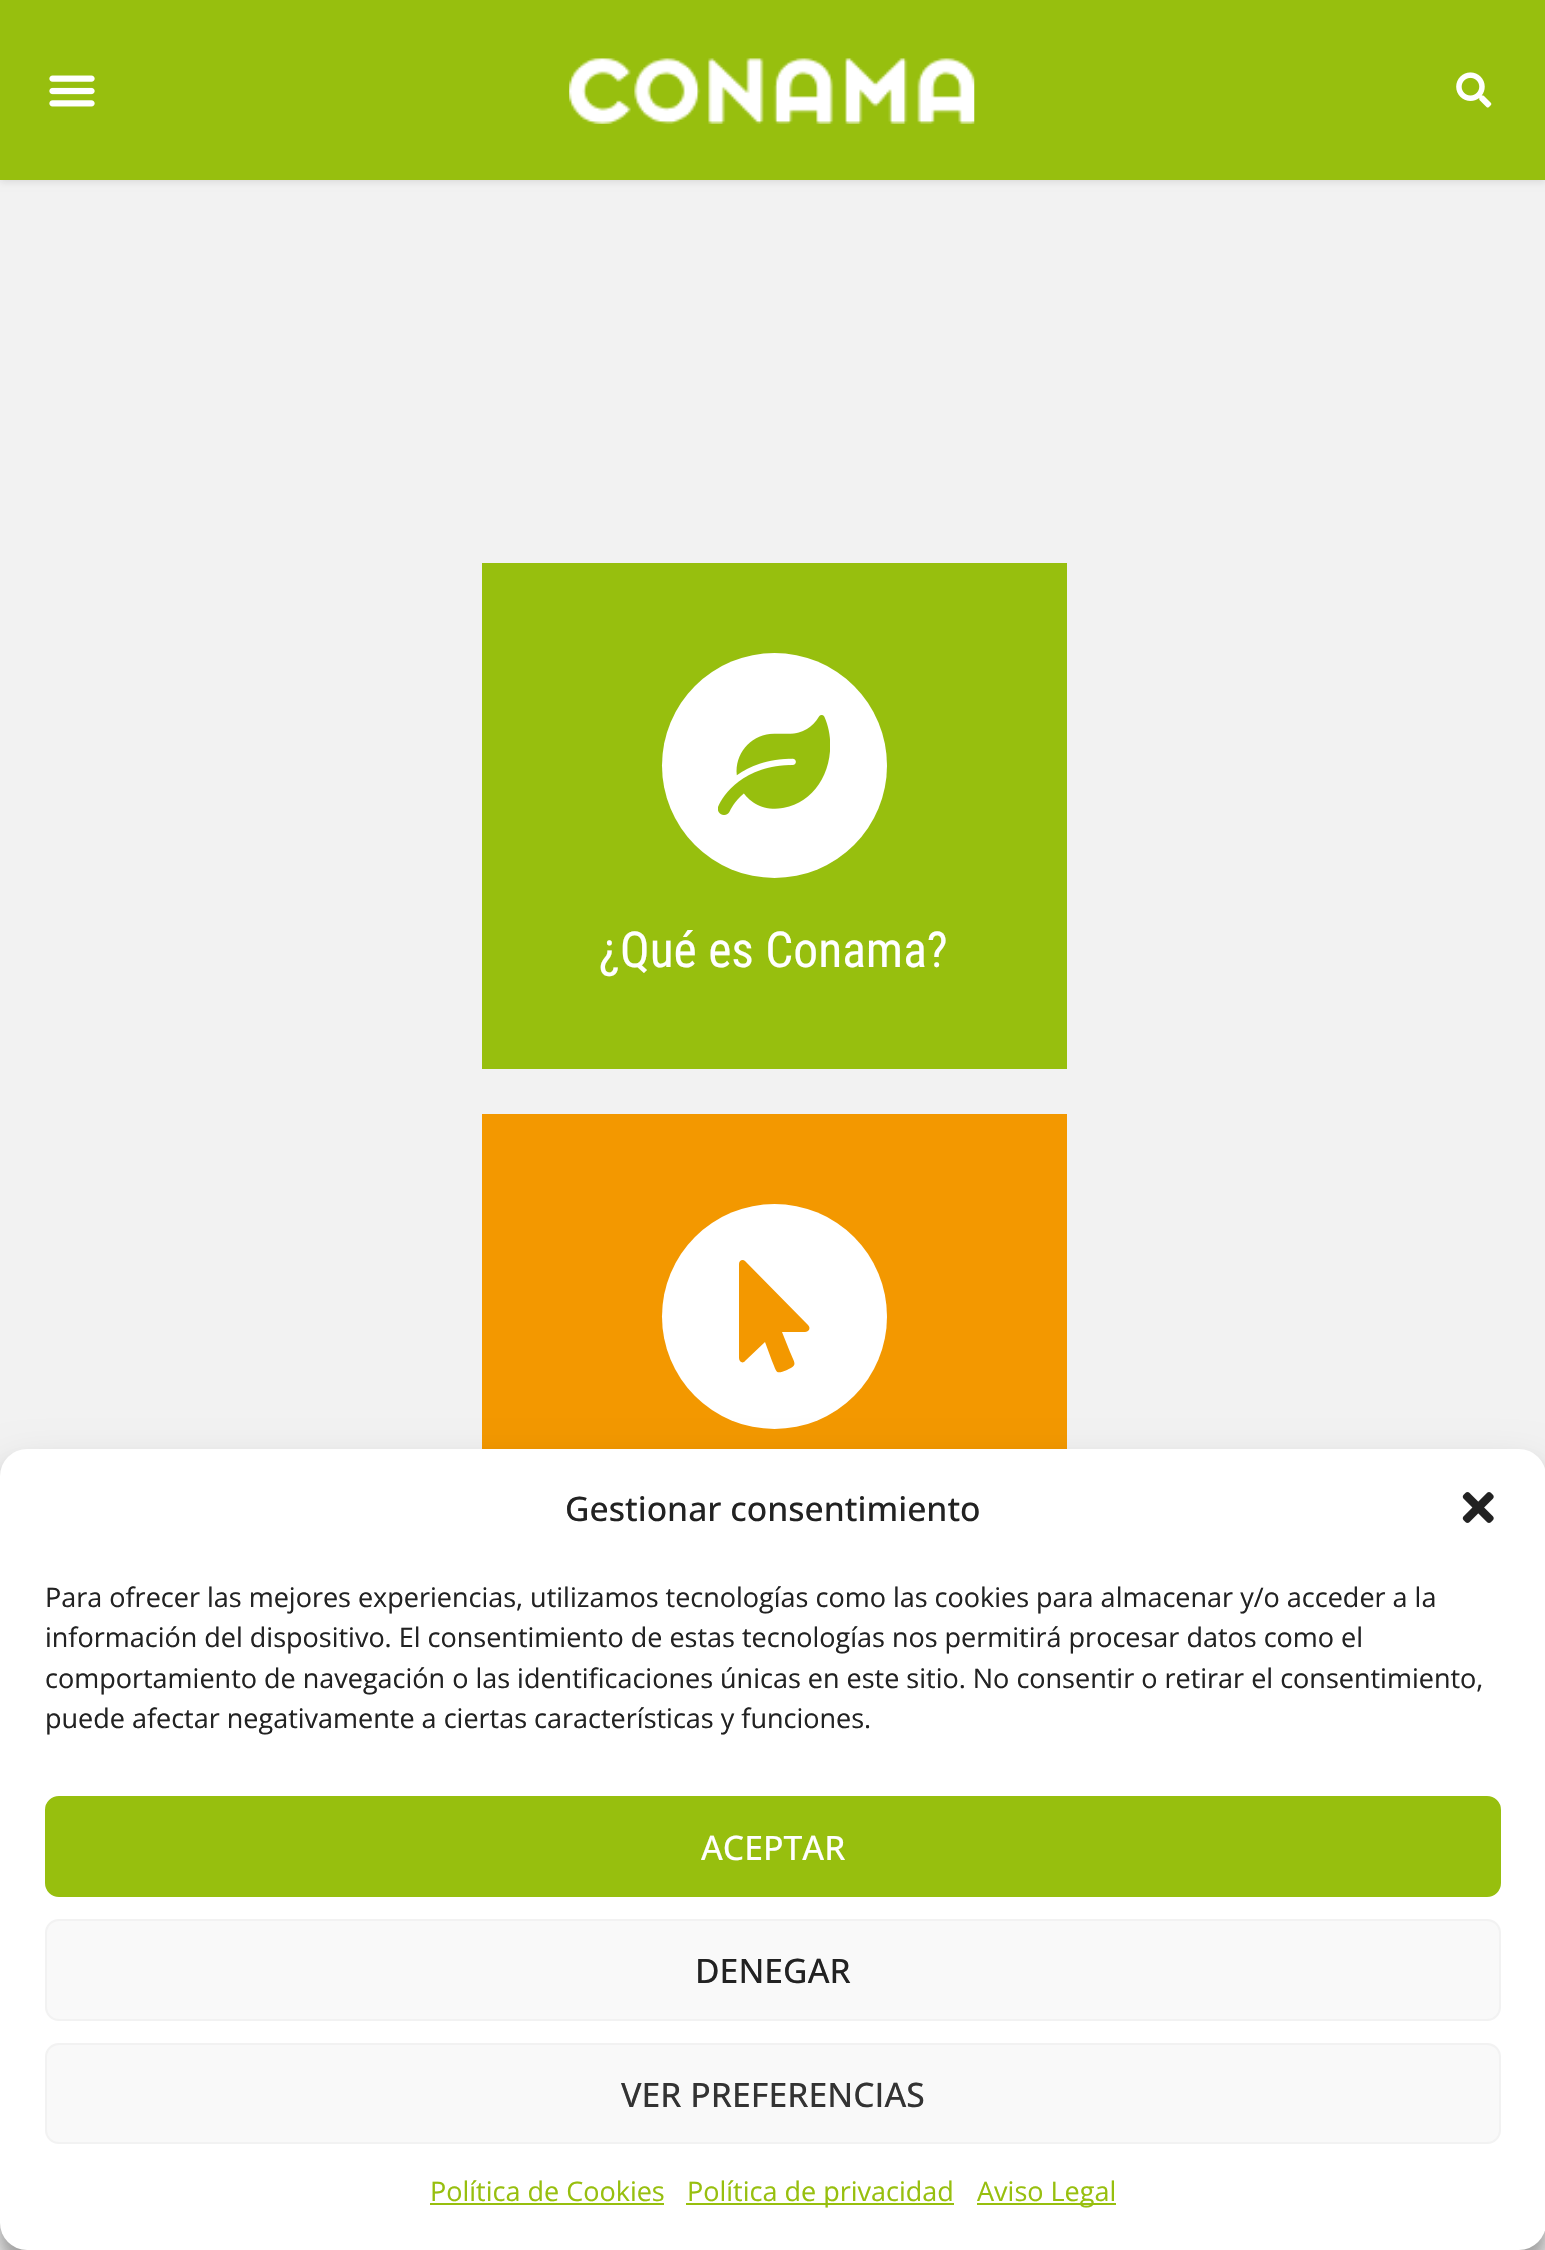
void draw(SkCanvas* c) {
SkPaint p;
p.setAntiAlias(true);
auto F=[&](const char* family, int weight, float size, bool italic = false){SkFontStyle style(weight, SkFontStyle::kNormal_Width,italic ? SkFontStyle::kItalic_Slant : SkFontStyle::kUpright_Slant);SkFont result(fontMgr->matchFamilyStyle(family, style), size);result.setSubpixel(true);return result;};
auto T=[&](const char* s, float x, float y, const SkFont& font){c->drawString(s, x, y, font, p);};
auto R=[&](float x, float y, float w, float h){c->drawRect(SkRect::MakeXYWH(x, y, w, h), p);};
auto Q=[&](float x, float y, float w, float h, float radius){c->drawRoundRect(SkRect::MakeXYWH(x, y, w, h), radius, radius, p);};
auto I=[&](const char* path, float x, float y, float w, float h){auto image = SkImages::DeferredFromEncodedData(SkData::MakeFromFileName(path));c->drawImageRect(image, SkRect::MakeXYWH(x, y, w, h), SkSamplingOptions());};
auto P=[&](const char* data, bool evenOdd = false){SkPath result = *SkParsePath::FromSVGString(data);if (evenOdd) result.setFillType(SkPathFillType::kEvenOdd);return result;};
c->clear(0xfff2f2f2);
p.setColor(0x1a000000);
p.setMaskFilter(SkMaskFilter::MakeBlur(kNormal_SkBlurStyle, 3.5));
c->drawRect(SkRect::MakeXYWH(0,2,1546,180),p);
p.setMaskFilter(nullptr);
p.setColor(0xff97bf0e);
R(0,0,1545,180);
I("1.png",49,75,46,32);
I("2.png",569,58,406,66);
I("3.png",1456,72,36,36);
R(482,563,585,506);
p.setColor(0xffffffff);
c->drawCircle(774.5,765.5,112.5,p);
I("4.png",718,715,112,100);
auto f1 = F("Roboto Condensed",400,49.5);
T("¿Qué es Conama?",599,967,f1);
p.setColor(0xfff39800);
R(482,1114,585,335);
p.setColor(0xffffffff);
c->drawCircle(774.5,1316.5,112.5,p);
p.setColor(0xfff39800);
c->drawPath(P("M805 1332h-23l8 20c5 12 8 13-3 18c-12 5-10 2-15-9l-7-19l-20 19c-2 3-6 1-6-3v-94c0-4 4-5 6-3l63 64c3 3 1 7-3 7z"),p);
p.setColor(0x3b000000);
p.setMaskFilter(SkMaskFilter::MakeBlur(kNormal_SkBlurStyle, 7));
c->drawRoundRect(SkRect::MakeXYWH(0,1463,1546,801),27,27,p);
p.setMaskFilter(nullptr);
p.setColor(0x30000000);
p.setMaskFilter(SkMaskFilter::MakeBlur(kNormal_SkBlurStyle, 22.5));
c->drawRoundRect(SkRect::MakeXYWH(0,1472,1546,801),27,27,p);
p.setMaskFilter(nullptr);
p.setColor(0xffffffff);
Q(0,1449,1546,801,27);
auto f2 = F("Open Sans",500,33.75);
p.setColor(0xff222222);
T("Gestionar consentimiento",565,1521,f2);
I("5.png",1462,1492,32,31);
auto f3 = F("Open Sans",400,27);
T("Para ofrecer las mejores experiencias, utilizamos tecnologías como las cookies para almacenar y/o acceder a la",45,1607,f3);
T("información del dispositivo. El consentimiento de estas tecnologías nos permitirá procesar datos como el",45,1647,f3);
T("comportamiento de navegación o las identificaciones únicas en este sitio. No consentir o retirar el consentimiento,",45,1688,f3);
T("puede afectar negativamente a ciertas características y funciones.",45,1728,f3);
p.setColor(0xff97bf0e);
c->drawRoundRect(SkRect::MakeXYWH(46,1797,1454,99),13,13,p);
p.setStroke(true);
p.setStrokeWidth(2);
c->drawRoundRect(SkRect::MakeXYWH(46,1797,1454,99),13,13,p);
p.setStroke(false);
p.setColor(0xffffffff);
T("ACEPTAR",701,1860,f2);
p.setColor(0xfff9f9f9);
c->drawRoundRect(SkRect::MakeXYWH(46,1920,1454,100),13,13,p);
p.setStroke(true);
p.setColor(0xfff2f2f2);
c->drawRoundRect(SkRect::MakeXYWH(46,1920,1454,100),13,13,p);
p.setStroke(false);
p.setColor(0xff222222);
T("DENEGAR",695,1983,f2);
p.setColor(0xfff9f9f9);
c->drawRoundRect(SkRect::MakeXYWH(46,2044,1454,99),13,13,p);
p.setStroke(true);
p.setColor(0xfff2f2f2);
c->drawRoundRect(SkRect::MakeXYWH(46,2044,1454,99),13,13,p);
p.setStroke(false);
p.setColor(0xff333333);
T("VER PREFERENCIAS",621,2107,f2);
p.setColor(0xff97bf0e);
T("Política de Cookies",430,2201,f3);
R(430,2203,234,2);
R(686,2203,268,2);
T("Política de privacidad",687,2201,f3);
R(977,2203,139,2);
T("Aviso Legal",977,2201,f3);
}
